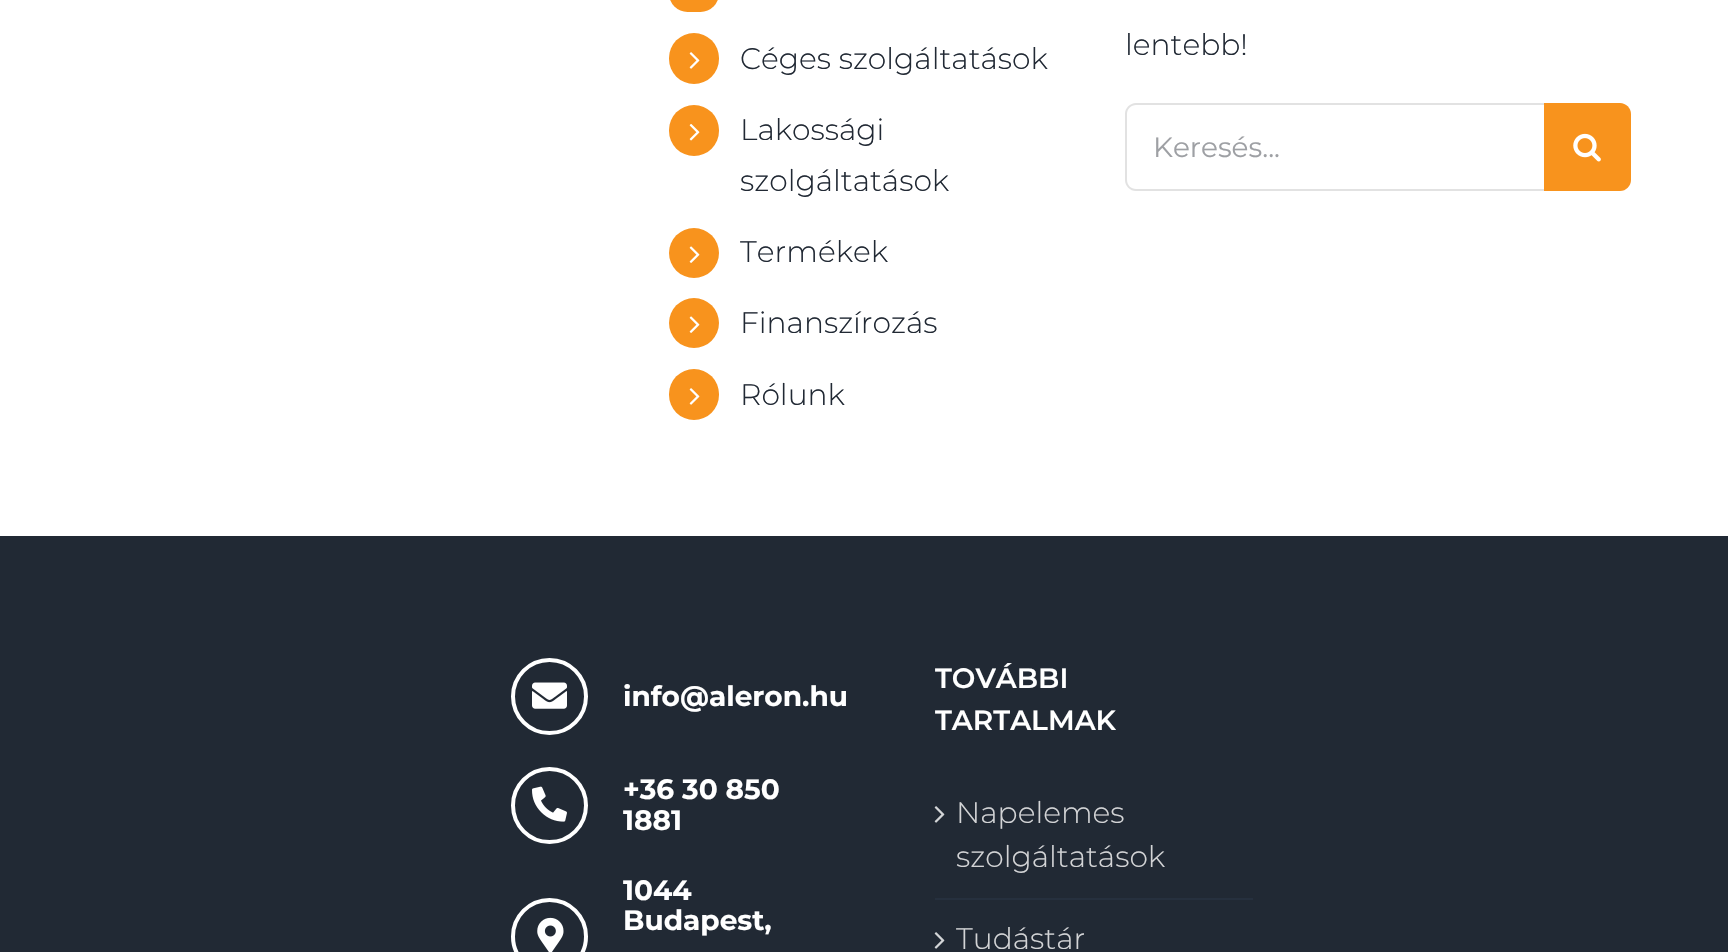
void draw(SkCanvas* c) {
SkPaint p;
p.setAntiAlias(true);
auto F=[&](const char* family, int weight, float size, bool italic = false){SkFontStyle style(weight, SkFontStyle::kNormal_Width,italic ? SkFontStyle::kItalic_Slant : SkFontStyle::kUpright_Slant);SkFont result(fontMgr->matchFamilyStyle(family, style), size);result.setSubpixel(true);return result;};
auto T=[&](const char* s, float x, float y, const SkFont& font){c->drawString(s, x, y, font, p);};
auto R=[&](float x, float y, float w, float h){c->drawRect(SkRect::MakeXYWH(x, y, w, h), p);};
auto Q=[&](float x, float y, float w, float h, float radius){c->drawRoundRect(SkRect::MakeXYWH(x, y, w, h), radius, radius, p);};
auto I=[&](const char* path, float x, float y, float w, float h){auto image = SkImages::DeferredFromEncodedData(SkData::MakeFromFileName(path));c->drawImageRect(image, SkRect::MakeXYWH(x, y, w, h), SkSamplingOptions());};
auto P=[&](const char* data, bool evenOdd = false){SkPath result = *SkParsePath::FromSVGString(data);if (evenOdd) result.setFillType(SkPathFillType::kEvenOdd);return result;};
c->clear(0xffffffff);
p.setColor(0xfff8931d);
Q(669,-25,50,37,25);
Q(669,33,50,51,25);
I("1.png",689,52,11,17);
auto f1 = F("Montserrat",300,29.75);
p.setColor(0xff212934);
T("Céges szolgáltatások",740,69,f1);
p.setColor(0xfff8931d);
Q(669,105,50,51,25);
I("2.png",689,124,11,17);
p.setColor(0xff212934);
T("Lakossági",740,140,f1);
T("szolgáltatások",740,191,f1);
p.setColor(0xfff8931d);
c->drawCircle(694,253,25,p);
I("3.png",689,246,11,17);
p.setColor(0xff212934);
T("Termékek",740,262,f1);
p.setColor(0xfff8931d);
c->drawCircle(694,323,25,p);
I("3.png",689,316,11,17);
p.setColor(0xff212934);
T("Finanszírozás",740,333,f1);
p.setColor(0xfff8931d);
Q(669,369,50,51,25);
I("1.png",689,388,11,17);
p.setColor(0xff212934);
T("Rólunk",740,405,f1);
T("lentebb!",1125,55,f1);
p.setColor(0xffe2e2e2);
c->drawPath(P("M1136 103h408v88h-408c-6 0-11-5-11-11v-66c0-6 5-11 11-11zm0 2h408v84h-408c-5 0-9-4-9-9v-66c0-5 4-9 9-9z",true),p);
auto f2 = F("Montserrat",400,28);
p.setColor(0xff9ea0a4);
T("Keresés...",1153,157,f2);
p.setColor(0xfff8931d);
c->drawPath(P("M1544 103h76c6 0 11 5 11 11v66c0 6-5 11-11 11h-76z"),p);
I("4.png",1573,133,28,29);
p.setColor(0xff212934);
R(0,536,1728,416);
p.setStroke(true);
p.setStrokeWidth(4);
p.setColor(0xffffffff);
c->drawCircle(549.5,696.5,36.5,p);
I("5.png",532,682,35,27);
auto f3 = F("Montserrat",700,28);
p.setStroke(false);
T("info@aleron.hu",623,706,f3);
p.setStroke(true);
c->drawCircle(549.5,805.5,36.5,p);
I("6.png",532,786,35,36);
p.setStroke(false);
T("+36 30 850",623,799,f3);
T("1881",623,830,f3);
p.setStroke(true);
c->drawCircle(549.5,936.5,36.5,p);
I("7.png",537,917,27,35);
p.setStroke(false);
T("1044",623,900,f3);
T("Budapest,",623,930,f3);
auto f4 = F("Montserrat",600,28);
T("TOVÁBBI",935,688,f4);
T("TARTALMAK",935,730,f4);
p.setColor(0xff26303e);
R(935,898,318,2);
I("8.png",934,806,11,17);
p.setColor(0xffd3d4d6);
T("Napelemes",956,823,f1);
T("szolgáltatások",956,867,f1);
I("8.png",934,932,11,17);
T("Tudástár",956,949,f1);
}
